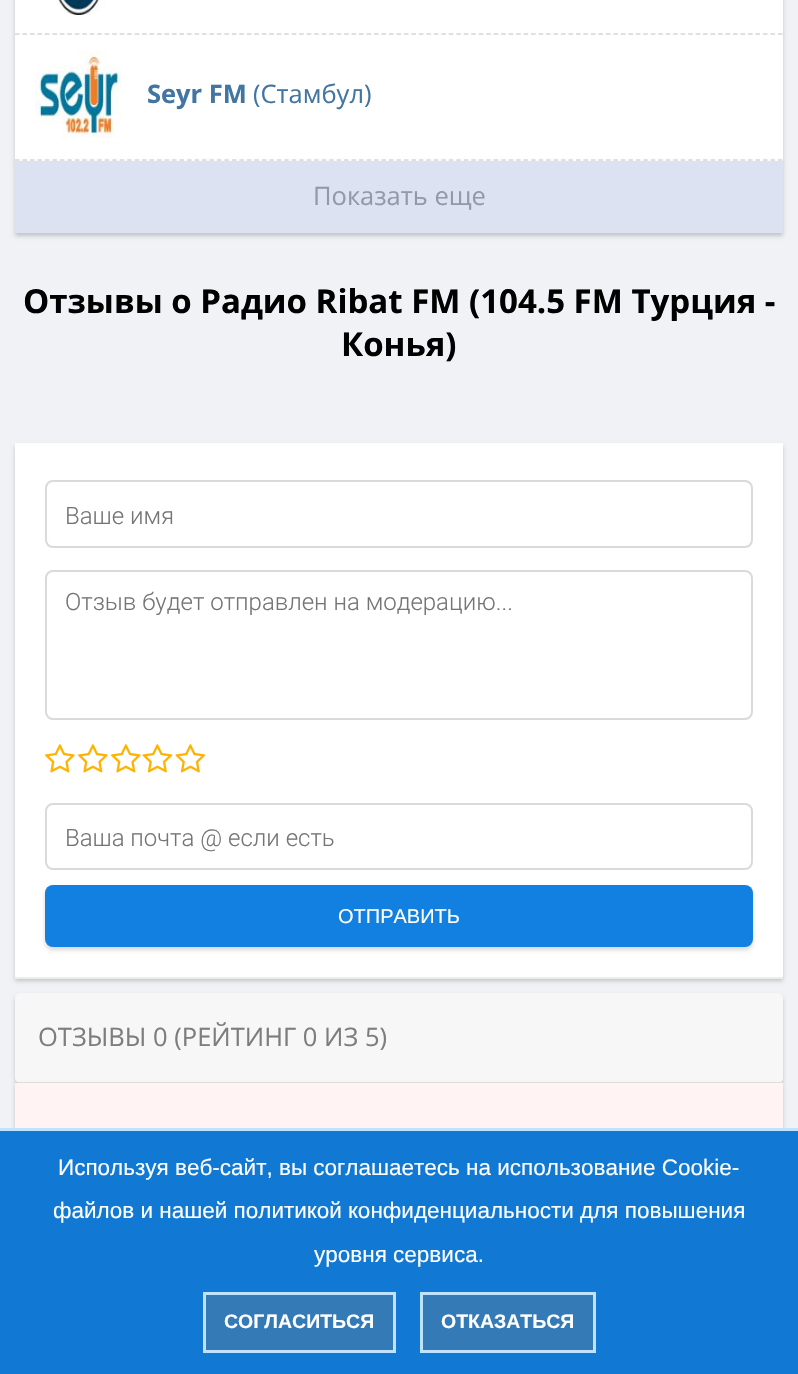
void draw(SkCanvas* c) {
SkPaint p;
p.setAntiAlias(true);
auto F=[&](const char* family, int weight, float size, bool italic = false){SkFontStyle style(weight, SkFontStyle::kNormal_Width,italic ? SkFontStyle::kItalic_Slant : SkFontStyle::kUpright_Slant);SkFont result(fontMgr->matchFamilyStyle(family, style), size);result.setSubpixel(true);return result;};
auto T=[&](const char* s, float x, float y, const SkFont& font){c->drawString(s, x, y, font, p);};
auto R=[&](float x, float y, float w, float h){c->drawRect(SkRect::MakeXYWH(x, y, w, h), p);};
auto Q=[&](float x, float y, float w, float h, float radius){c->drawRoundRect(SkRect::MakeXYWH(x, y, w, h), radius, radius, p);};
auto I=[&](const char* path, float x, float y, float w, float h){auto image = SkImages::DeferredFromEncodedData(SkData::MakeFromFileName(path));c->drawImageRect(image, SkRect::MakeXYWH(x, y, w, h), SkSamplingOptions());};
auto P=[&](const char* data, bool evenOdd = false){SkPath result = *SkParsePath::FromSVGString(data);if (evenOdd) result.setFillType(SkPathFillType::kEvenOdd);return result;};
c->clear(0xfff1f2f5);
p.setColor(0x30000000);
p.setMaskFilter(SkMaskFilter::MakeBlur(kNormal_SkBlurStyle, 2));
c->drawRect(SkRect::MakeXYWH(15,-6,768,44),p);
p.setMaskFilter(nullptr);
p.setColor(0xffffffff);
R(15,0,768,35);
p.setStroke(true);
p.setStrokeWidth(1.5);
p.setColor(0xffd9d9d9);
p.setPathEffect(SkDashPathEffect::Make({{4.5f,2.98f}}, 0));
c->drawPath(P("M15 34h768"),p);
p.setPathEffect(nullptr);
I("1.png",58,0,48,15);
p.setStroke(false);
p.setColor(0x30000000);
p.setMaskFilter(SkMaskFilter::MakeBlur(kNormal_SkBlurStyle, 2));
c->drawRect(SkRect::MakeXYWH(15,38,768,126),p);
p.setMaskFilter(nullptr);
p.setColor(0xffffffff);
R(15,35,768,126);
p.setStroke(true);
p.setColor(0xffd9d9d9);
p.setPathEffect(SkDashPathEffect::Make({{4.5f,2.98f}}, 0));
c->drawPath(P("M15 160h768"),p);
p.setPathEffect(nullptr);
I("2.png",35,51,86,87);
auto f1 = F("Open Sans",700,25.5);
p.setStroke(false);
p.setColor(0xff4175a2);
T("Seyr FM",147,103,f1);
auto f2 = F("Open Sans",400,25.5);
T("(Стамбул)",253,103,f2);
p.setColor(0x30000000);
p.setMaskFilter(SkMaskFilter::MakeBlur(kNormal_SkBlurStyle, 2));
c->drawRect(SkRect::MakeXYWH(15,164,768,72),p);
p.setMaskFilter(nullptr);
p.setColor(0xffdde2f3);
R(15,161,768,72);
p.setColor(0xff9498a7);
T("Показать еще",313,205,f2);
auto f3 = F("Open Sans",700,33);
p.setColor(0xff000000);
T("Отзывы о Радио Ribat FM (104.5 FM Турция -",23,313,f3);
T("Конья)",341,356,f3);
p.setColor(0x30000000);
p.setMaskFilter(SkMaskFilter::MakeBlur(kNormal_SkBlurStyle, 2));
c->drawRect(SkRect::MakeXYWH(15,446,768,535),p);
p.setMaskFilter(nullptr);
p.setColor(0xffffffff);
R(15,443,768,534);
p.setColor(0xffececec);
R(15,977,768,2);
p.setStroke(true);
p.setStrokeWidth(2);
p.setColor(0xffdadada);
c->drawRoundRect(SkRect::MakeXYWH(46,481,706,66),7,7,p);
auto f4 = F("Roboto",300,24);
p.setStroke(false);
p.setColor(0xff757575);
T("Ваше имя",65,524,f4);
p.setStroke(true);
p.setColor(0xffdadada);
c->drawRoundRect(SkRect::MakeXYWH(46,571,706,148),7,7,p);
p.setStroke(false);
p.setColor(0xff757575);
T("Отзыв будет отправлен на модерацию...",65,610,f4);
I("3.png",45,744,30,29);
I("3.png",78,744,30,29);
I("3.png",111,744,30,29);
I("4.png",142,744,31,29);
I("4.png",175,744,31,29);
p.setStroke(true);
p.setColor(0xffdadada);
c->drawRoundRect(SkRect::MakeXYWH(46,804,706,65),7,7,p);
p.setStroke(false);
p.setColor(0xff757575);
T("Ваша почта @ если есть",65,846,f4);
p.setColor(0x26000000);
p.setMaskFilter(SkMaskFilter::MakeBlur(kNormal_SkBlurStyle, 2));
c->drawRoundRect(SkRect::MakeXYWH(45,888,708,62),8,8,p);
p.setMaskFilter(nullptr);
p.setColor(0xff1280e1);
Q(45,885,708,62,8);
auto f5 = F("Liberation Sans",400,20);
p.setColor(0xffffffff);
T("ОТПРАВИТЬ",338,923,f5);
p.setColor(0x30000000);
p.setMaskFilter(SkMaskFilter::MakeBlur(kNormal_SkBlurStyle, 2));
c->drawRoundRect(SkRect::MakeXYWH(15,996,768,90),5,5,p);
p.setMaskFilter(nullptr);
p.setColor(0xfff7f7f7);
Q(15,993,768,90,5);
p.setColor(0xffe0e0e0);
R(18,1082,764,1);
p.setColor(0xff7d7d7d);
T("ОТЗЫВЫ 0 (РЕЙТИНГ 0 ИЗ 5)",38,1046,f2);
p.setColor(0x30000000);
p.setMaskFilter(SkMaskFilter::MakeBlur(kNormal_SkBlurStyle, 2));
c->drawRect(SkRect::MakeXYWH(15,1086,768,122),p);
p.setMaskFilter(nullptr);
p.setColor(0xfffff3f3);
R(15,1083,768,45);
p.setColor(0xff1179d4);
R(0,1131,798,243);
p.setColor(0xffbfe2ff);
R(0,1128,798,3);
auto f6 = F("Liberation Sans",400,22.5);
p.setColor(0xffffffff);
T("Используя веб-сайт, вы соглашаетесь на использование Cookie-",58,1175,f6);
T("файлов и нашей политикой конфиденциальности для повышения",53,1218,f6);
T("уровня сервиса.",314,1262,f6);
p.setColor(0xff337ab7);
c->drawRect(SkRect::MakeXYWH(204.5,1293.5,190,58),p);
p.setStroke(true);
p.setStrokeWidth(3);
p.setColor(0xffbfe2ff);
c->drawRect(SkRect::MakeXYWH(204.5,1293.5,190,58),p);
auto f7 = F("Liberation Sans",700,19.5);
p.setStroke(false);
p.setColor(0xffffffff);
T("СОГЛАСИТЬСЯ",224,1328,f7);
p.setColor(0xff337ab7);
c->drawRect(SkRect::MakeXYWH(421.5,1293.5,173,58),p);
p.setStroke(true);
p.setColor(0xffbfe2ff);
c->drawRect(SkRect::MakeXYWH(421.5,1293.5,173,58),p);
p.setStroke(false);
p.setColor(0xffffffff);
T("ОТКАЗАТЬСЯ",441,1328,f7);
}
